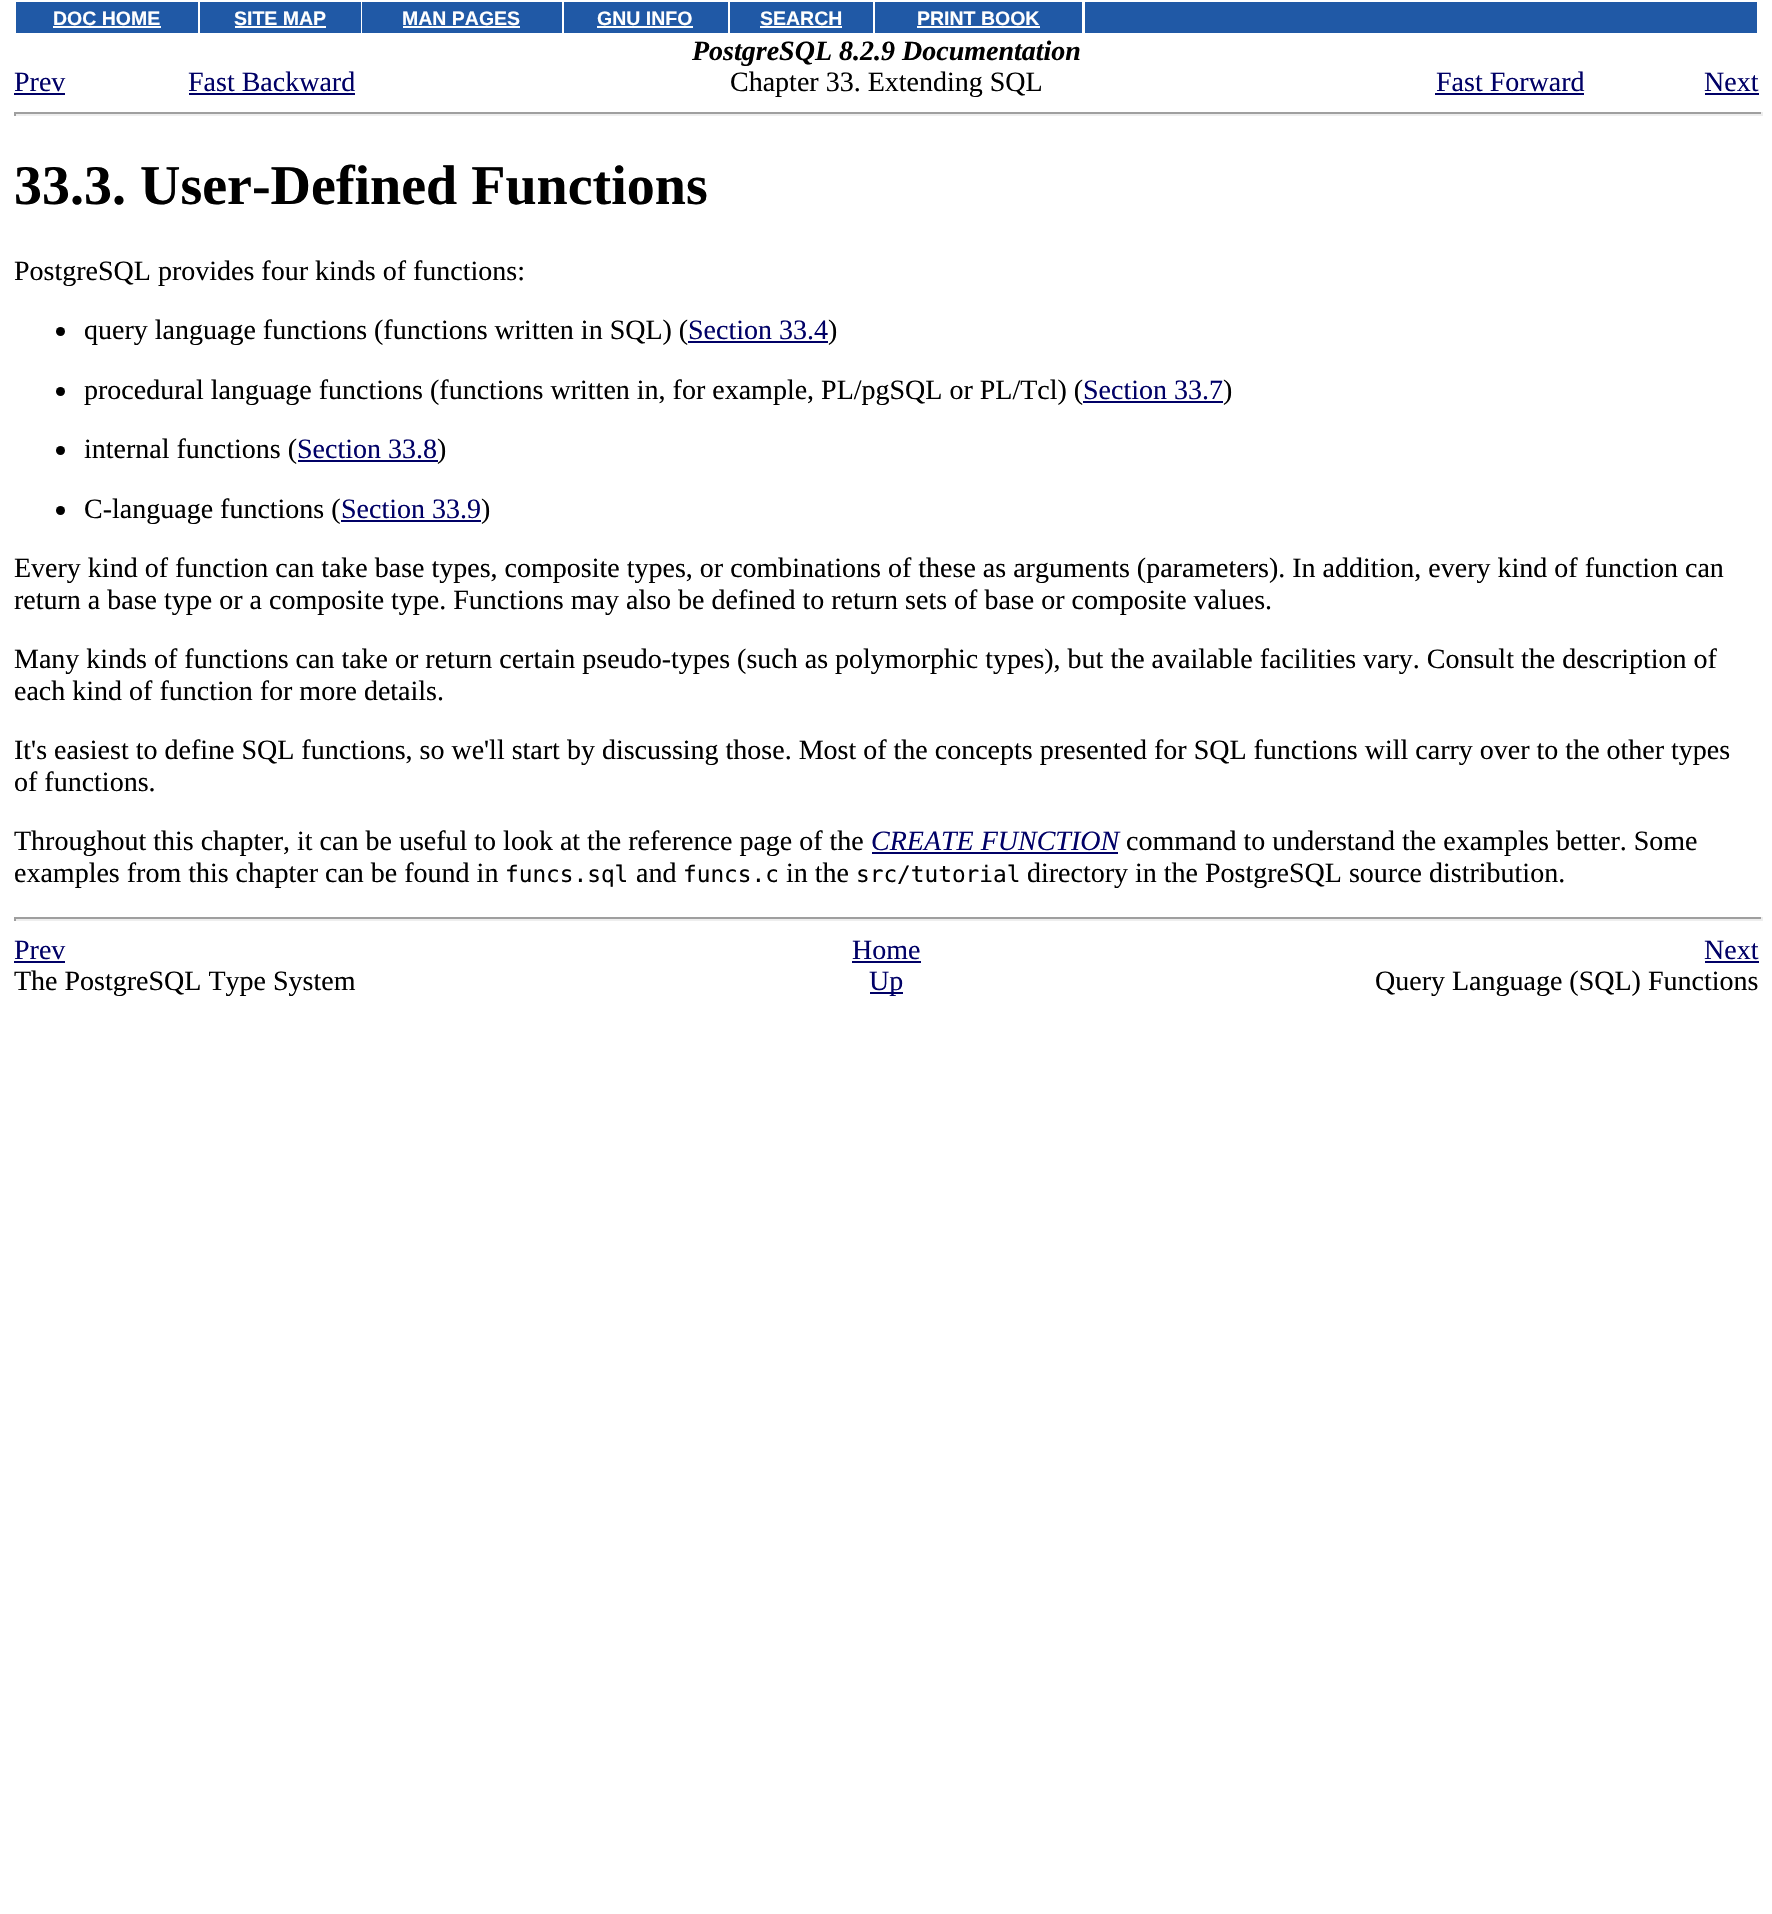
void draw(SkCanvas* c) {
SkPaint p;
p.setAntiAlias(true);
auto F=[&](const char* family, int weight, float size, bool italic = false){SkFontStyle style(weight, SkFontStyle::kNormal_Width,italic ? SkFontStyle::kItalic_Slant : SkFontStyle::kUpright_Slant);SkFont result(fontMgr->matchFamilyStyle(family, style), size);result.setSubpixel(true);return result;};
auto T=[&](const char* s, float x, float y, const SkFont& font){c->drawString(s, x, y, font, p);};
auto R=[&](float x, float y, float w, float h){c->drawRect(SkRect::MakeXYWH(x, y, w, h), p);};
c->clear(0xffffffff);
p.setColor(0xff2059a6);
R(16,2,182,31);
auto f1 = F("Liberation Sans",700,19.5);
p.setColor(0xffffffff);
T("DOC HOME",53,25,f1);
R(53,26,108,2);
p.setColor(0xff2059a6);
R(200,2,161,31);
p.setColor(0xffffffff);
T("SITE MAP",234,25,f1);
R(235,26,91,2);
p.setColor(0xff2059a6);
R(362,2,200,31);
p.setColor(0xffffffff);
T("MAN PAGES",402,25,f1);
R(403,26,117,2);
p.setColor(0xff2059a6);
R(564,2,164,31);
p.setColor(0xffffffff);
T("GNU INFO",597,25,f1);
R(597,26,96,2);
p.setColor(0xff2059a6);
R(730,2,143,31);
p.setColor(0xffffffff);
T("SEARCH",760,25,f1);
R(760,26,82,2);
p.setColor(0xff2059a6);
R(875,2,207,31);
p.setColor(0xffffffff);
T("PRINT BOOK",917,25,f1);
R(917,26,123,2);
p.setColor(0xff2059a6);
R(1085,2,672,31);
auto f2 = F("Liberation Serif",700,28,true);
p.setColor(0xff000000);
T("PostgreSQL 8.2.9 Documentation",692,60,f2);
auto f3 = F("Liberation Serif",400,28);
p.setColor(0xff000066);
T("Prev",14,91,f3);
R(14,93,51,2);
T("Fast Backward",188,91,f3);
R(189,93,166,2);
p.setColor(0xff000000);
T("Chapter 33. Extending SQL",730,91,f3);
p.setColor(0xff000066);
T("Fast Forward",1436,91,f3);
R(1435,93,149,2);
T("Next",1704,91,f3);
R(1705,93,54,2);
p.setColor(0xff9f9f9f);
R(14,112,1748,2);
p.setColor(0xffeeeeee);
R(1761,112,2,4);
R(14,114,1748,2);
p.setColor(0xff9f9f9f);
R(14,112,2,4);
auto f4 = F("Liberation Serif",700,56);
p.setColor(0xff000000);
T("33.3. User-Defined Functions",14,204,f4);
T("PostgreSQL provides four kinds of functions:",14,280,f3);
c->drawCircle(60.5,331.5,4.5,p);
T("query language functions (functions written in SQL) (",84,339,f3);
p.setColor(0xff000066);
T("Section 33.4",688,339,f3);
R(688,341,140,2);
p.setColor(0xff000000);
T(")",828,339,f3);
c->drawCircle(60.5,391.5,4.5,p);
T("procedural language functions (functions written in, for example, PL/pgSQL or PL/Tcl) (",84,399,f3);
p.setColor(0xff000066);
T("Section 33.7",1083,399,f3);
R(1083,401,140,2);
p.setColor(0xff000000);
T(")",1223,399,f3);
c->drawCircle(60.5,450.5,4.5,p);
T("internal functions (",84,458,f3);
p.setColor(0xff000066);
T("Section 33.8",297,458,f3);
R(298,460,140,2);
p.setColor(0xff000000);
T(")",437,458,f3);
c->drawCircle(60.5,510.5,4.5,p);
T("C-language functions (",84,518,f3);
p.setColor(0xff000066);
T("Section 33.9",341,518,f3);
R(341,520,140,2);
p.setColor(0xff000000);
T(")",481,518,f3);
T("Every kind of function can take base types, composite types, or combinations of these as arguments (parameters). In addition, every kind of function can",14,577,f3);
T("return a base type or a composite type. Functions may also be defined to return sets of base or composite values.",14,609,f3);
T("Many kinds of functions can take or return certain pseudo-types (such as polymorphic types), but the available facilities vary. Consult the description of",14,668,f3);
T("each kind of function for more details.",14,700,f3);
T("It's easiest to define SQL functions, so we'll start by discussing those. Most of the concepts presented for SQL functions will carry over to the other types",14,759,f3);
T("of functions.",14,791,f3);
T("Throughout this chapter, it can be useful to look at the reference page of the",14,850,f3);
auto f5 = F("Liberation Serif",400,28,true);
p.setColor(0xff000066);
T("CREATE FUNCTION",871,850,f5);
R(872,852,246,2);
p.setColor(0xff000000);
T("command to understand the examples better. Some",1126,850,f3);
T("examples from this chapter can be found in",14,882,f3);
auto f6 = F("DejaVu Sans Mono",400,22.75);
T("funcs.sql",505,882,f6);
T("and",636,882,f3);
T("funcs.c",683,882,f6);
T("in the",786,882,f3);
T("src/tutorial",856,882,f6);
T("directory in the PostgreSQL source distribution.",1027,882,f3);
p.setColor(0xff9f9f9f);
R(14,917,1748,2);
p.setColor(0xffeeeeee);
R(1761,917,2,4);
R(14,919,1748,2);
p.setColor(0xff9f9f9f);
R(14,917,2,4);
p.setColor(0xff000066);
T("Prev",14,959,f3);
R(14,961,51,2);
T("Home",852,959,f3);
R(852,961,69,2);
T("Next",1704,959,f3);
R(1705,961,54,2);
p.setColor(0xff000000);
T("The PostgreSQL Type System",14,990,f3);
p.setColor(0xff000066);
R(870,992,33,2);
T("Up",869,990,f3);
p.setColor(0xff000000);
T("Query Language (SQL) Functions",1375,990,f3);
}
